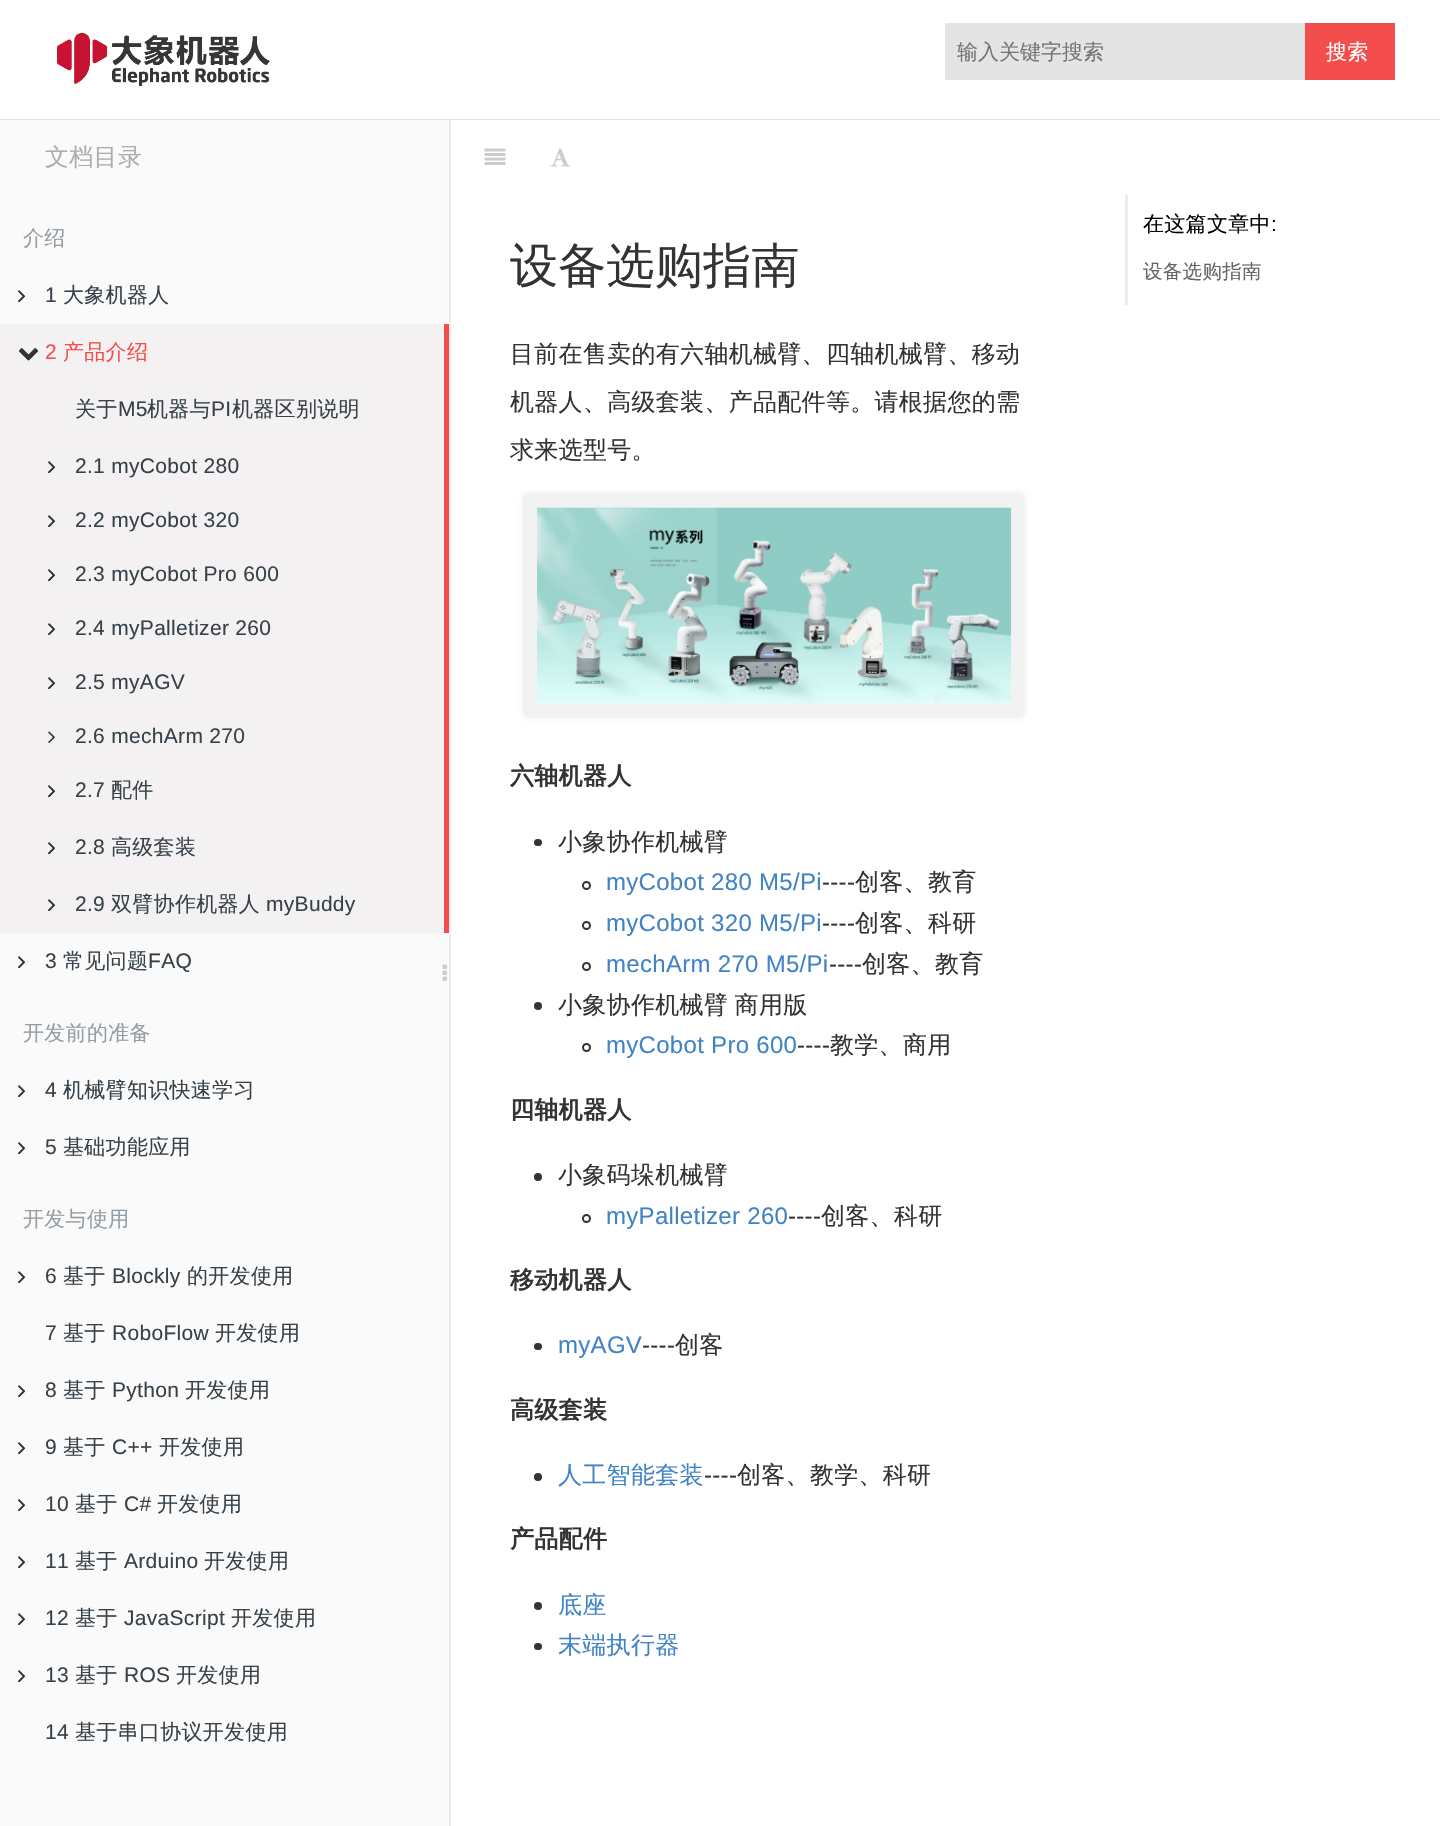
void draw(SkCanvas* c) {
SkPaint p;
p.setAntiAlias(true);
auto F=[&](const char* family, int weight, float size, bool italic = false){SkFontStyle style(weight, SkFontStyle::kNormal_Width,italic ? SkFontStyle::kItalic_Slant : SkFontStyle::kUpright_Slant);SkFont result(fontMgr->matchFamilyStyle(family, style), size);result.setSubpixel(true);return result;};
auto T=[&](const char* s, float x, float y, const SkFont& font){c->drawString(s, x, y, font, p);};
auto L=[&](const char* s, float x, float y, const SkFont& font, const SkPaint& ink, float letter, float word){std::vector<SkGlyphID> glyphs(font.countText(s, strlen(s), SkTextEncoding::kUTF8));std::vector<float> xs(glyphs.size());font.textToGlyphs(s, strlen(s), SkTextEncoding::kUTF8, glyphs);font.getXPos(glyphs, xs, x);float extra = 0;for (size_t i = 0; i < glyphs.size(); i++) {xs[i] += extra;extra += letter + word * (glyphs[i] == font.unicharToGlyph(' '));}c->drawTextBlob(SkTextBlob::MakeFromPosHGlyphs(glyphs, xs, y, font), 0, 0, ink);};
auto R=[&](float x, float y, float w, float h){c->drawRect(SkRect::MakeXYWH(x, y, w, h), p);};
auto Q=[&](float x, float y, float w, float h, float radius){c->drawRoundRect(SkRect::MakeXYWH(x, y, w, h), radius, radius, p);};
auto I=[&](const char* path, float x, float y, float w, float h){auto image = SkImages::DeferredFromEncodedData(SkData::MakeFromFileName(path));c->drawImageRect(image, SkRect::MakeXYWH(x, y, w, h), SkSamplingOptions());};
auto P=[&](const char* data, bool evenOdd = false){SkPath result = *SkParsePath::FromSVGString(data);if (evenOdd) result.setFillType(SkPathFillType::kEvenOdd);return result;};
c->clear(0xffffffff);
p.setColor(0xffe2e2e2);
R(0,119,1440,1);
I("1.png",57,32,213,54);
p.setColor(0xfff34d4d);
R(1305,23,90,57);
p.setColor(0xffe4e4e4);
R(945,23,360,57);
auto f1 = F("WenQuanYi Zen Hei",500,21);
p.setColor(0xff757575);
T("输入关键字搜索",957,59,f1);
p.setColor(0xffffffff);
L("搜索",1326,59,f1,p,.3,0);
p.setColor(0xfffafafa);
R(0,120,449,1706);
p.setColor(0xffe8e8e8);
R(449,120,1,1706);
auto f2 = F("WenQuanYi Zen Hei",500,24);
p.setColor(0xffadadad);
L("文档目录",45,165,f2,p,.3,0);
p.setColor(0xff939da3);
L("介绍",23,245,f1,p,.3,0);
I("2.png",18,290,7,12);
auto f3 = F("Liberation Sans",400,21);
p.setColor(0xff364149);
L("1",45,302,f3,p,.3,0);
L("大象机器人",63,302,f1,p,.3,0);
I("3.png",18,290,7,12);
p.setColor(0xfff3f1f1);
R(0,324,444,609);
p.setColor(0xfff34d4d);
R(444,324,5,609);
I("4.png",19,348,19,13);
L("2",45,359,f3,p,.3,0);
L("产品介绍",63,359,f1,p,.3,0);
I("5.png",19,348,19,13);
p.setColor(0xff364149);
L("关于",75,416,f1,p,.3,0);
L("M5",118,416,f3,p,.3,0);
L("机器与",147,416,f1,p,.3,0);
L("PI",211,416,f3,p,.3,0);
L("机器区别说明",232,416,f1,p,.3,0);
I("6.png",48,461,7,12);
L("2.1 myCobot 280",75,473,f3,p,.3,0);
I("7.png",48,461,7,12);
I("6.png",48,515,7,12);
L("2.2 myCobot 320",75,527,f3,p,.3,0);
I("7.png",48,515,7,12);
I("6.png",48,569,7,12);
L("2.3 myCobot Pro 600",75,581,f3,p,.3,0);
I("7.png",48,569,7,12);
I("6.png",48,623,7,12);
L("2.4 myPalletizer 260",75,635,f3,p,.3,0);
I("7.png",48,623,7,12);
I("6.png",48,677,7,12);
L("2.5 myAGV",75,689,f3,p,.3,0);
I("7.png",48,677,7,12);
I("6.png",48,731,7,12);
L("2.6 mechArm 270",75,743,f3,p,.3,0);
I("6.png",48,785,7,12);
L("2.7",75,797,f3,p,.3,0);
L("配件",111,797,f1,p,.3,0);
I("7.png",48,785,7,12);
I("6.png",48,842,7,12);
L("2.8",75,854,f3,p,.3,0);
L("高级套装",111,854,f1,p,.3,0);
I("7.png",48,842,7,12);
I("6.png",48,899,7,12);
L("2.9",75,911,f3,p,.3,0);
L("双臂协作机器人",111,911,f1,p,.3,0);
L("myBuddy",266,911,f3,p,.3,0);
I("7.png",48,899,7,12);
I("2.png",18,956,7,12);
L("3",45,968,f3,p,.3,0);
L("常见问题",63,968,f1,p,.3,0);
L("FAQ",148,968,f3,p,.3,0);
I("3.png",18,956,7,12);
p.setColor(0xff939da3);
L("开发前的准备",23,1040,f1,p,.3,0);
I("2.png",18,1085,7,12);
p.setColor(0xff364149);
L("4",45,1097,f3,p,.3,0);
L("机械臂知识快速学习",63,1097,f1,p,.3,0);
I("3.png",18,1085,7,12);
I("2.png",18,1142,7,12);
L("5",45,1154,f3,p,.3,0);
L("基础功能应用",63,1154,f1,p,.3,0);
I("3.png",18,1142,7,12);
p.setColor(0xff939da3);
L("开发与使用",23,1226,f1,p,.3,0);
I("2.png",18,1271,7,12);
p.setColor(0xff364149);
L("6",45,1283,f3,p,.3,0);
L("基于",63,1283,f1,p,.3,0);
L("Blockly",112,1283,f3,p,.3,0);
L("的开发使用",187,1283,f1,p,.3,0);
I("3.png",18,1271,7,12);
L("7",45,1340,f3,p,.3,0);
L("基于",63,1340,f1,p,.3,0);
L("RoboFlow",112,1340,f3,p,.3,0);
L("开发使用",215,1340,f1,p,.3,0);
I("2.png",18,1385,7,12);
L("8",45,1397,f3,p,.3,0);
L("基于",63,1397,f1,p,.3,0);
L("Python",112,1397,f3,p,.3,0);
L("开发使用",185,1397,f1,p,.3,0);
I("3.png",18,1385,7,12);
I("2.png",18,1442,7,12);
L("9",45,1454,f3,p,.3,0);
L("基于",63,1454,f1,p,.3,0);
L("C++",112,1454,f3,p,.3,0);
L("开发使用",159,1454,f1,p,.3,0);
I("3.png",18,1442,7,12);
I("2.png",18,1499,7,12);
L("10",45,1511,f3,p,.3,0);
L("基于",75,1511,f1,p,.3,0);
L("C#",124,1511,f3,p,.3,0);
L("开发使用",157,1511,f1,p,.3,0);
I("3.png",18,1499,7,12);
I("2.png",18,1556,7,12);
L("11",45,1568,f3,p,.3,0);
L("基于",75,1568,f1,p,.3,0);
L("Arduino",124,1568,f3,p,.3,0);
L("开发使用",204,1568,f1,p,.3,0);
I("3.png",18,1556,7,12);
I("2.png",18,1613,7,12);
L("12",45,1625,f3,p,.3,0);
L("基于",75,1625,f1,p,.3,0);
L("JavaScript",124,1625,f3,p,.3,0);
L("开发使用",231,1625,f1,p,.3,0);
I("3.png",18,1613,7,12);
I("2.png",18,1670,7,12);
L("13",45,1682,f3,p,.3,0);
L("基于",75,1682,f1,p,.3,0);
L("ROS",124,1682,f3,p,.3,0);
L("开发使用",176,1682,f1,p,.3,0);
I("3.png",18,1670,7,12);
L("14",45,1739,f3,p,.3,0);
L("基于串口协议开发使用",75,1739,f1,p,.3,0);
I("8.png",442,964,5,17);
p.setColor(0xffededed);
R(450,120,1,1706);
I("9.png",484,148,22,17);
I("10.png",550,148,20,19);
auto f4 = F("WenQuanYi Zen Hei",500,48);
p.setColor(0xff333333);
L("设备选购指南",510,282,f4,p,.3,0);
L("目前在售卖的有六轴机械臂、四轴机械臂、移动",510,362,f2,p,.3,0);
L("机器人、高级套装、产品配件等。请根据您的需",510,410,f2,p,.3,0);
L("求来选型号。",510,458,f2,p,.3,0);
c->save();
c->clipPath(P("M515 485h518v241h-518zm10 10h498v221h-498z",true),true);
p.setColor(0xffdcdcdc);
p.setMaskFilter(SkMaskFilter::MakeBlur(kNormal_SkBlurStyle, 3));
c->drawRect(SkRect::MakeXYWH(525,495,498,221),p);
p.setMaskFilter(nullptr);
c->restore();
p.setColor(0x78e4e4e4);
R(525,495,498,221);
I("11.png",537,507,474,197);
auto f5 = F("WenQuanYi Zen Hei",700,24);
p.setColor(0xff333333);
L("六轴机器人",510,784,f5,p,.3,0);
Q(534,839,8,7,3.5);
L("小象协作机械臂",558,850,f2,p,.3,0);
p.setStroke(true);
p.setStrokeWidth(2);
c->drawCircle(586.5,885.5,3.5,p);
auto f6 = F("Liberation Sans",400,24);
p.setStroke(false);
p.setColor(0xff4183c4);
L("myCobot 280 M5/Pi",606,890,f6,p,.3,0);
p.setColor(0xff333333);
L("----",822,890,f6,p,.3,0);
L("创客、教育",855,890,f2,p,.3,0);
p.setStroke(true);
c->drawCircle(586.5,925.5,3.5,p);
p.setStroke(false);
p.setColor(0xff4183c4);
L("myCobot 320 M5/Pi",606,931,f6,p,.3,0);
p.setColor(0xff333333);
L("----",822,931,f6,p,.3,0);
L("创客、科研",855,931,f2,p,.3,0);
p.setStroke(true);
c->drawCircle(586.5,966.5,3.5,p);
p.setStroke(false);
p.setColor(0xff4183c4);
L("mechArm 270 M5/Pi",606,972,f6,p,.3,0);
p.setColor(0xff333333);
L("----",829,972,f6,p,.3,0);
L("创客、教育",862,972,f2,p,.3,0);
c->drawCircle(538,1006,4,p);
L("小象协作机械臂 商用版",558,1013,f2,p,.3,-1);
p.setStroke(true);
c->drawCircle(586.5,1047.5,3.5,p);
p.setStroke(false);
p.setColor(0xff4183c4);
L("myCobot Pro 600",606,1053,f6,p,.3,0);
p.setColor(0xff333333);
L("----",797,1053,f6,p,.3,0);
L("教学、商用",830,1053,f2,p,.3,0);
L("四轴机器人",510,1118,f5,p,.3,0);
c->drawCircle(538,1177,4,p);
L("小象码垛机械臂",558,1183,f2,p,.3,0);
p.setStroke(true);
c->drawCircle(586.5,1218.5,3.5,p);
p.setStroke(false);
p.setColor(0xff4183c4);
L("myPalletizer 260",606,1224,f6,p,.3,0);
p.setColor(0xff333333);
L("----",788,1224,f6,p,.3,0);
L("创客、科研",821,1224,f2,p,.3,0);
L("移动机器人",510,1288,f5,p,.3,0);
Q(534,1343,8,7,3.5);
p.setColor(0xff4183c4);
L("myAGV",558,1353,f6,p,.3,0);
p.setColor(0xff333333);
L("----",642,1353,f6,p,.3,0);
L("创客",675,1353,f2,p,.3,0);
L("高级套装",510,1418,f5,p,.3,0);
c->drawCircle(538,1477,4,p);
p.setColor(0xff4183c4);
L("人工智能套装",558,1483,f2,p,.3,0);
p.setColor(0xff333333);
L("----",704,1483,f6,p,.3,0);
L("创客、教学、科研",737,1483,f2,p,.3,0);
L("产品配件",510,1547,f5,p,.3,0);
c->drawCircle(538,1606,4,p);
p.setColor(0xff4183c4);
L("底座",558,1613,f2,p,.3,0);
p.setColor(0xff333333);
Q(534,1643,8,7,3.5);
p.setColor(0xff4183c4);
L("末端执行器",558,1653,f2,p,.3,0);
p.setColor(0xffececec);
R(1125,195,3,110);
p.setColor(0xff000000);
L("在这篇文章中",1143,231,f1,p,.3,0);
L(":",1271,231,f3,p,.3,0);
auto f7 = F("WenQuanYi Zen Hei",500,19.5);
p.setColor(0xff656565);
L("设备选购指南",1143,278,f7,p,.3,0);
}
